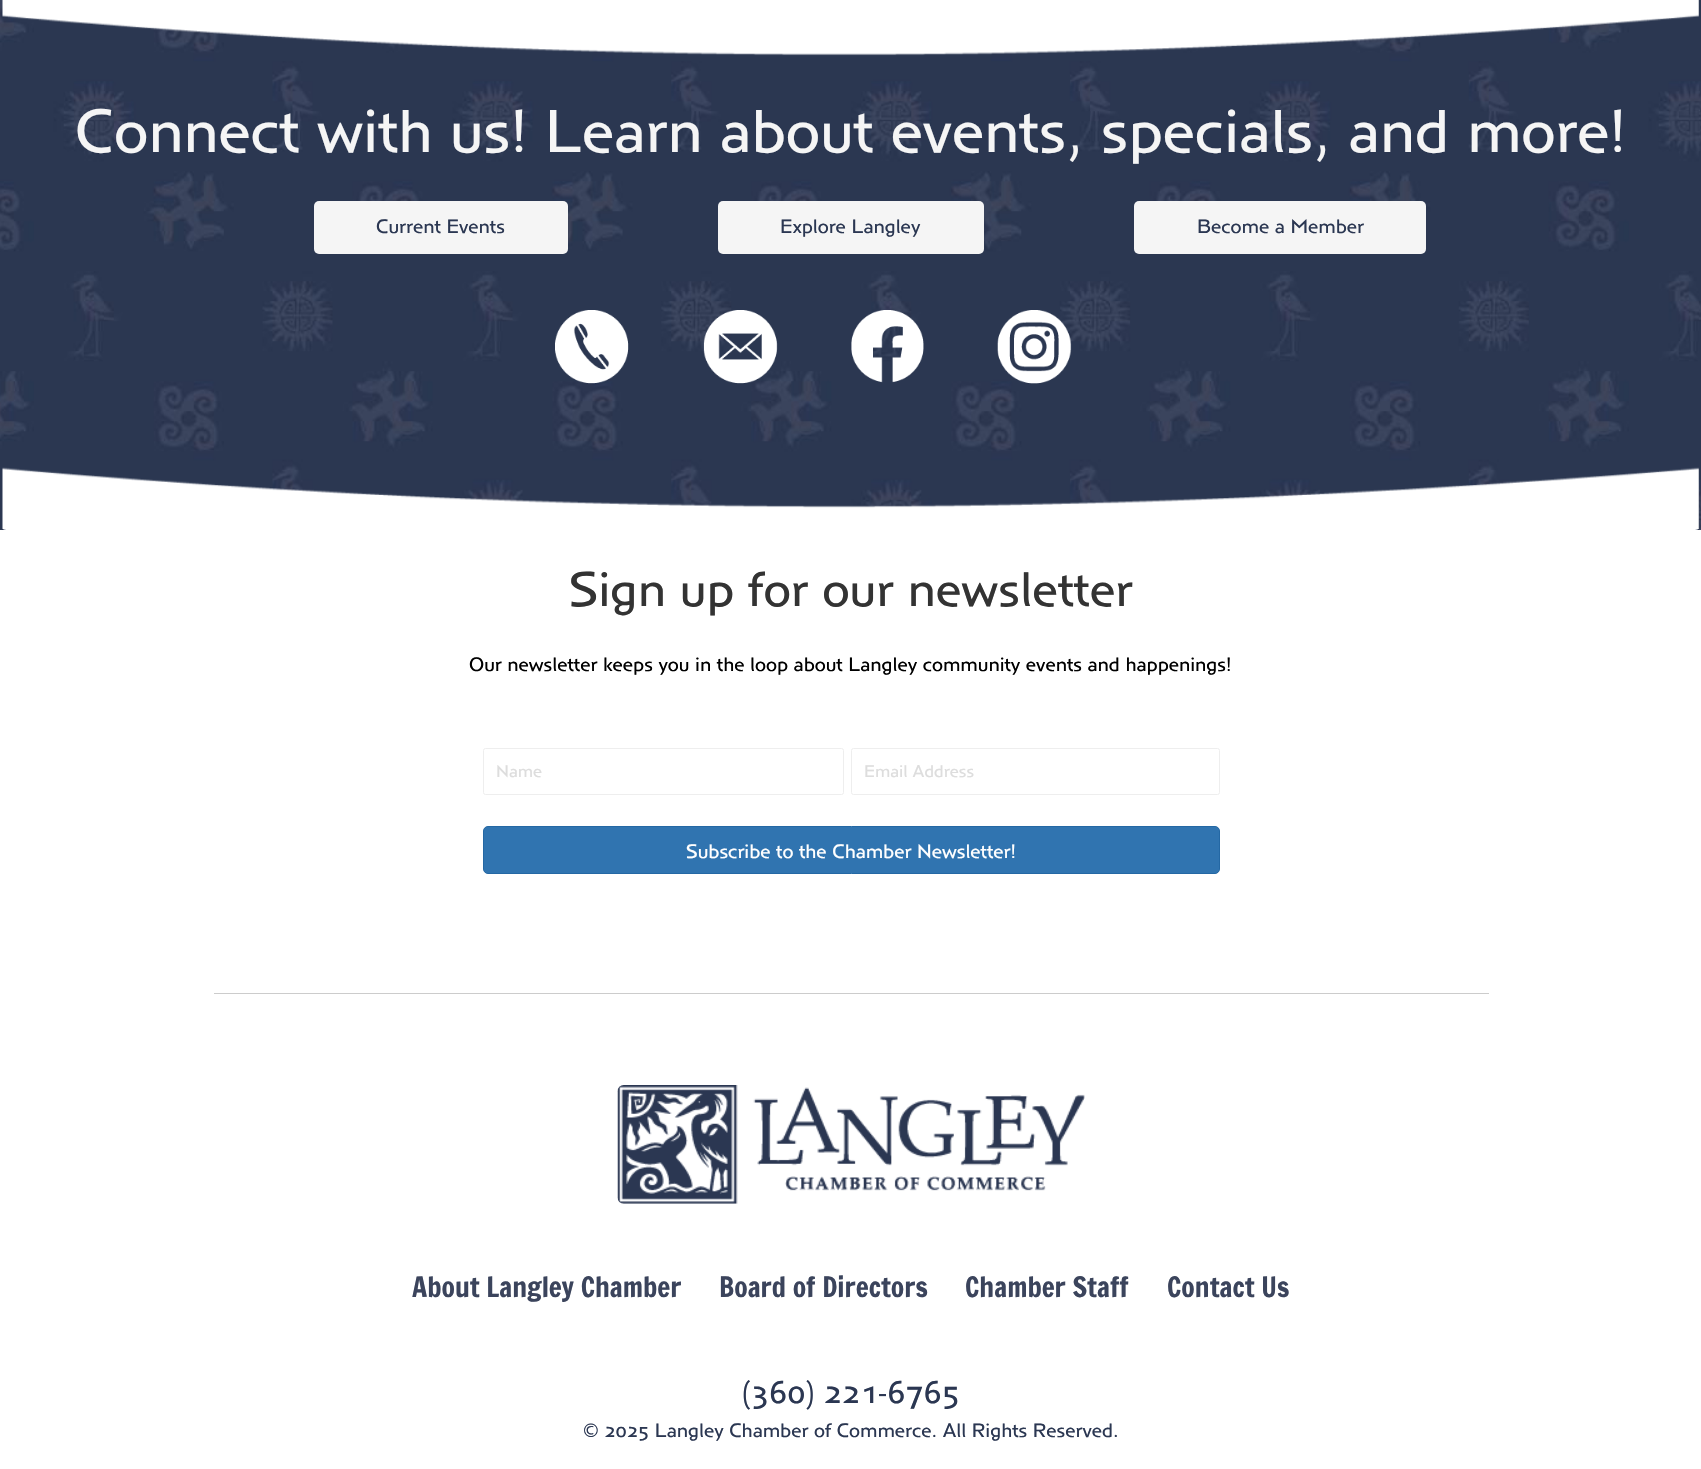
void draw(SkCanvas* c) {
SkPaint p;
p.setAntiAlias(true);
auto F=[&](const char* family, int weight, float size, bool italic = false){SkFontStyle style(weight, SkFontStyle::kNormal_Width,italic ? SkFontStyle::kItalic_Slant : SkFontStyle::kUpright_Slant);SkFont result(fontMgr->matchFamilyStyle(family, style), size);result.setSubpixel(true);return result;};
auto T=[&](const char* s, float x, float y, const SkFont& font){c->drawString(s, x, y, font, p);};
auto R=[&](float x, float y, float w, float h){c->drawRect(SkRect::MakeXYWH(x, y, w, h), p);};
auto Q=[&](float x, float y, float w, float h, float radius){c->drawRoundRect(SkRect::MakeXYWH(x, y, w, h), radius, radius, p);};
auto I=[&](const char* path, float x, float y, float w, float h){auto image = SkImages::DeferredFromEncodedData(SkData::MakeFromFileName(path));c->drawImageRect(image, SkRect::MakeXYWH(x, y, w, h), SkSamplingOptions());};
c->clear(0xffffffff);
I("1.png",0,0,1701,530);
I("2.png",2,0,1697,56);
auto f1 = F("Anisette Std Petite",400,62.5);
p.setColor(0xfff5f5f5);
T("Connect with us! Learn about events, specials, and more!",75,152,f1);
Q(314,201,254,53,5);
auto f2 = F("Anisette Std Petite",400,20);
p.setColor(0xff2b3752);
T("Current Events",376,233,f2);
p.setColor(0xfff5f5f5);
Q(718,201,266,53,5);
p.setColor(0xff2b3752);
T("Explore Langley",780,233,f2);
p.setColor(0xfff5f5f5);
Q(1134,201,292,53,5);
p.setColor(0xff2b3752);
T("Become a Member",1197,233,f2);
I("3.png",555,310,74,74);
I("4.png",703,310,75,74);
I("5.png",851,310,73,73);
I("6.png",997,310,75,74);
I("7.png",2,467,1697,63);
auto f3 = F("Anisette Std Petite",400,50);
p.setColor(0xff333333);
T("Sign up for our newsletter",569,606,f3);
p.setColor(0xff000000);
T("Our newsletter keeps you in the loop about Langley community events and happenings!",469,671,f2);
p.setStroke(true);
p.setStrokeWidth(1);
p.setColor(0xffeeeeee);
c->drawRoundRect(SkRect::MakeXYWH(483.5,748.5,360,46),2,2,p);
auto f4 = F("Anisette Std Petite",400,17.5);
p.setStroke(false);
p.setColor(0xffdddddd);
T("Name",496,777,f4);
p.setStroke(true);
p.setColor(0xffeeeeee);
c->drawRoundRect(SkRect::MakeXYWH(851.5,748.5,368,46),2,2,p);
p.setStroke(false);
p.setColor(0xffdddddd);
T("Email Address",864,777,f4);
p.setColor(0xff3074b0);
c->drawRoundRect(SkRect::MakeXYWH(483.5,826.5,736,47),4.5,4.5,p);
p.setStroke(true);
p.setColor(0xff2468a4);
c->drawRoundRect(SkRect::MakeXYWH(483.5,826.5,736,47),4.5,4.5,p);
p.setStroke(false);
p.setColor(0xffffffff);
T("Subscribe to the Chamber Newsletter!",686,858,f2);
p.setColor(0xffcccccc);
R(214,993,1275,1);
I("8.png",617,1085,468,119);
auto f5 = F("Francois One",400,27.5);
p.setColor(0xff3b445c);
T("About Langley Chamber",412,1297,f5);
T("Board of Directors",719,1297,f5);
T("Chamber Staff",965,1297,f5);
T("Contact Us",1167,1297,f5);
auto f6 = F("Anisette Std Petite",400,32.5);
p.setColor(0xff2b3752);
T("(360) 221-6765",742,1403,f6);
T("© 2025 Langley Chamber of Commerce. All Rights Reserved.",583,1437,f2);
}
